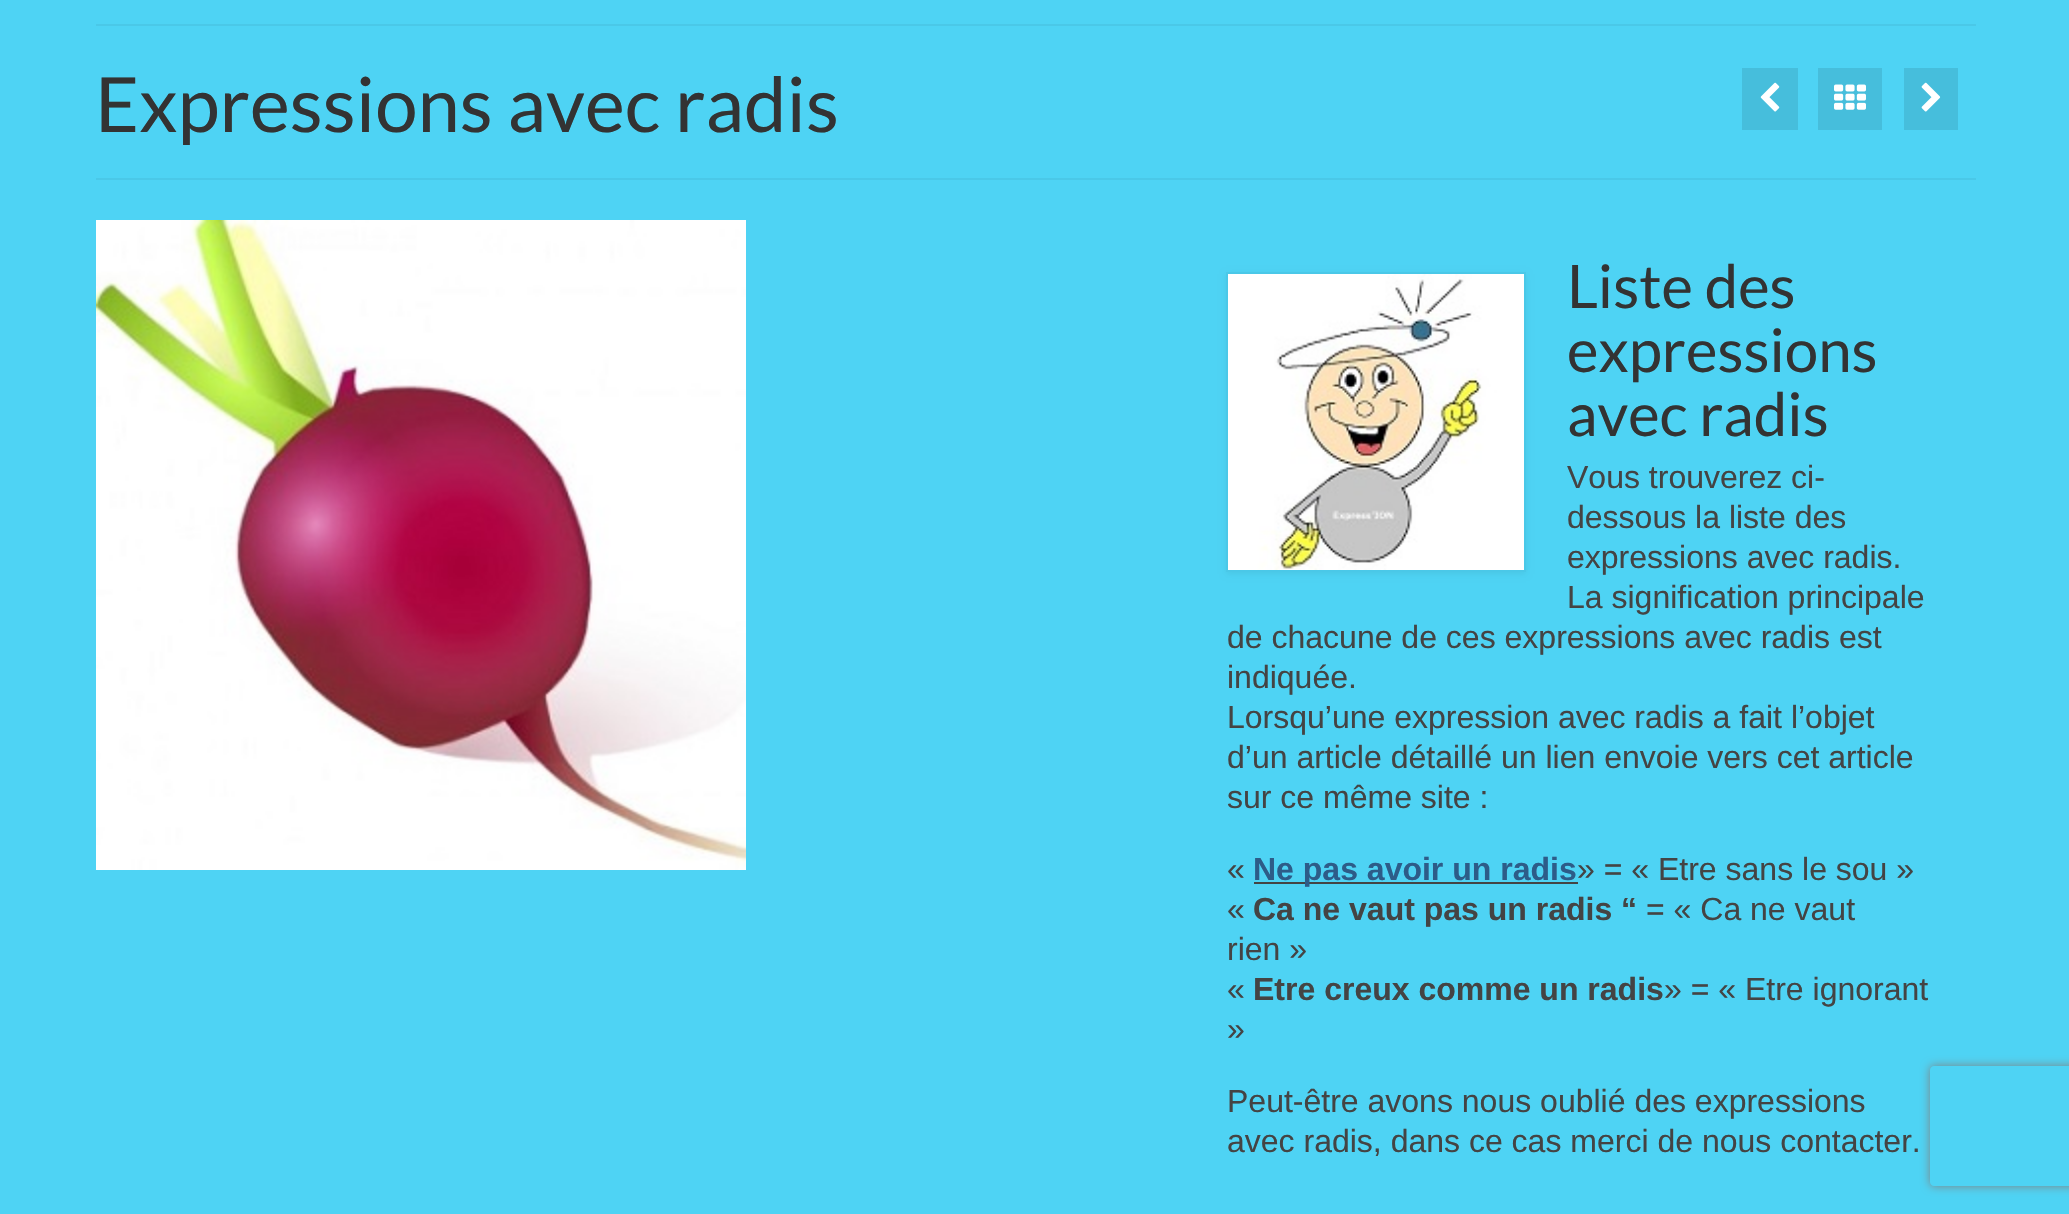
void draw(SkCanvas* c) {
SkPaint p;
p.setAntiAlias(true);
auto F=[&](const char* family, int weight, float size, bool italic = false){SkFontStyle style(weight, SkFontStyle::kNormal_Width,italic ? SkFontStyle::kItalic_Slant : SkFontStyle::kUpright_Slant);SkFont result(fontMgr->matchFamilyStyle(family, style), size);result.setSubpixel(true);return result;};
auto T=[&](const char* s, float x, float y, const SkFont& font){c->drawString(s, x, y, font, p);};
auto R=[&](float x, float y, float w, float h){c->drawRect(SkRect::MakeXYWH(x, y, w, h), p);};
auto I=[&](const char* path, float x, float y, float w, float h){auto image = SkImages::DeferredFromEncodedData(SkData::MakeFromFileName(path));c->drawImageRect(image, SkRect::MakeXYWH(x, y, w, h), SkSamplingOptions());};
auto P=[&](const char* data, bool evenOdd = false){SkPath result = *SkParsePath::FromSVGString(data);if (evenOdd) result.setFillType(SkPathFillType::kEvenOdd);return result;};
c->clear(0xff4ed3f4);
p.setColor(0xff4ac8e8);
R(96,24,1880,2);
R(96,178,1880,2);
auto f1 = F("Lato",400,76);
p.setColor(0xff333333);
T("Expressions avec radis",95,132,f1);
p.setColor(0xff46bedc);
R(1742,68,56,62);
I("1.png",1760,82,20,30);
R(1818,68,64,62);
I("2.png",1834,84,32,26);
R(1904,68,54,62);
I("3.png",1921,82,20,30);
I("4.png",96,220,650,650);
p.setColor(0x0f000000);
p.setMaskFilter(SkMaskFilter::MakeBlur(kNormal_SkBlurStyle, 3));
c->drawRect(SkRect::MakeXYWH(1226,274,300,300),p);
p.setMaskFilter(nullptr);
p.setStroke(true);
p.setStrokeWidth(2);
p.setColor(0xff4ac8e8);
c->drawRect(SkRect::MakeXYWH(1227,273,298,298),p);
I("5.png",1228,274,296,296);
auto f2 = F("Lato",400,60);
p.setStroke(false);
p.setColor(0xff333333);
T("Liste des",1567,308,f2);
T("expressions",1567,372,f2);
T("avec radis",1567,436,f2);
auto f3 = F("Liberation Sans",400,32);
p.setColor(0xff444444);
T("Vous trouverez ci-",1567,488,f3);
T("dessous la liste des",1567,528,f3);
T("expressions avec radis.",1567,568,f3);
T("La signification principale",1567,608,f3);
T("de chacune de ces expressions avec radis est",1227,648,f3);
T("indiquée.",1227,688,f3);
T("Lorsqu’une expression avec radis a fait l’objet",1227,728,f3);
T("d’un article détaillé un lien envoie vers cet article",1227,768,f3);
T("sur ce même site :",1227,808,f3);
T("«",1227,880,f3);
R(1254,882,324,2);
auto f4 = F("Liberation Sans",700,32);
p.setColor(0xff2d5c88);
T("Ne pas avoir un radis",1253,880,f4);
p.setColor(0xff444444);
T("» = « Etre sans le sou »",1577,880,f3);
T("«",1227,920,f3);
T("Ca ne vaut pas un radis “",1253,920,f4);
T("= « Ca ne vaut",1646,920,f3);
T("rien »",1227,960,f3);
T("«",1227,1000,f3);
T("Etre creux comme un radis",1253,1000,f4);
T("» = « Etre ignorant",1664,1000,f3);
T("»",1227,1040,f3);
T("Peut-être avons nous oublié des expressions",1227,1112,f3);
T("avec radis, dans ce cas merci de nous contacter.",1227,1152,f3);
c->save();
c->clipPath(P("M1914 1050h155v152h-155zm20 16h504c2 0 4 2 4 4v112c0 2-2 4-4 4h-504c-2 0-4-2-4-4v-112c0-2 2-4 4-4z",true),true);
p.setColor(0xff808080);
p.setMaskFilter(SkMaskFilter::MakeBlur(kNormal_SkBlurStyle, 5));
c->drawRoundRect(SkRect::MakeXYWH(1930,1066,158,120),4,4,p);
p.setMaskFilter(nullptr);
c->restore();
}
